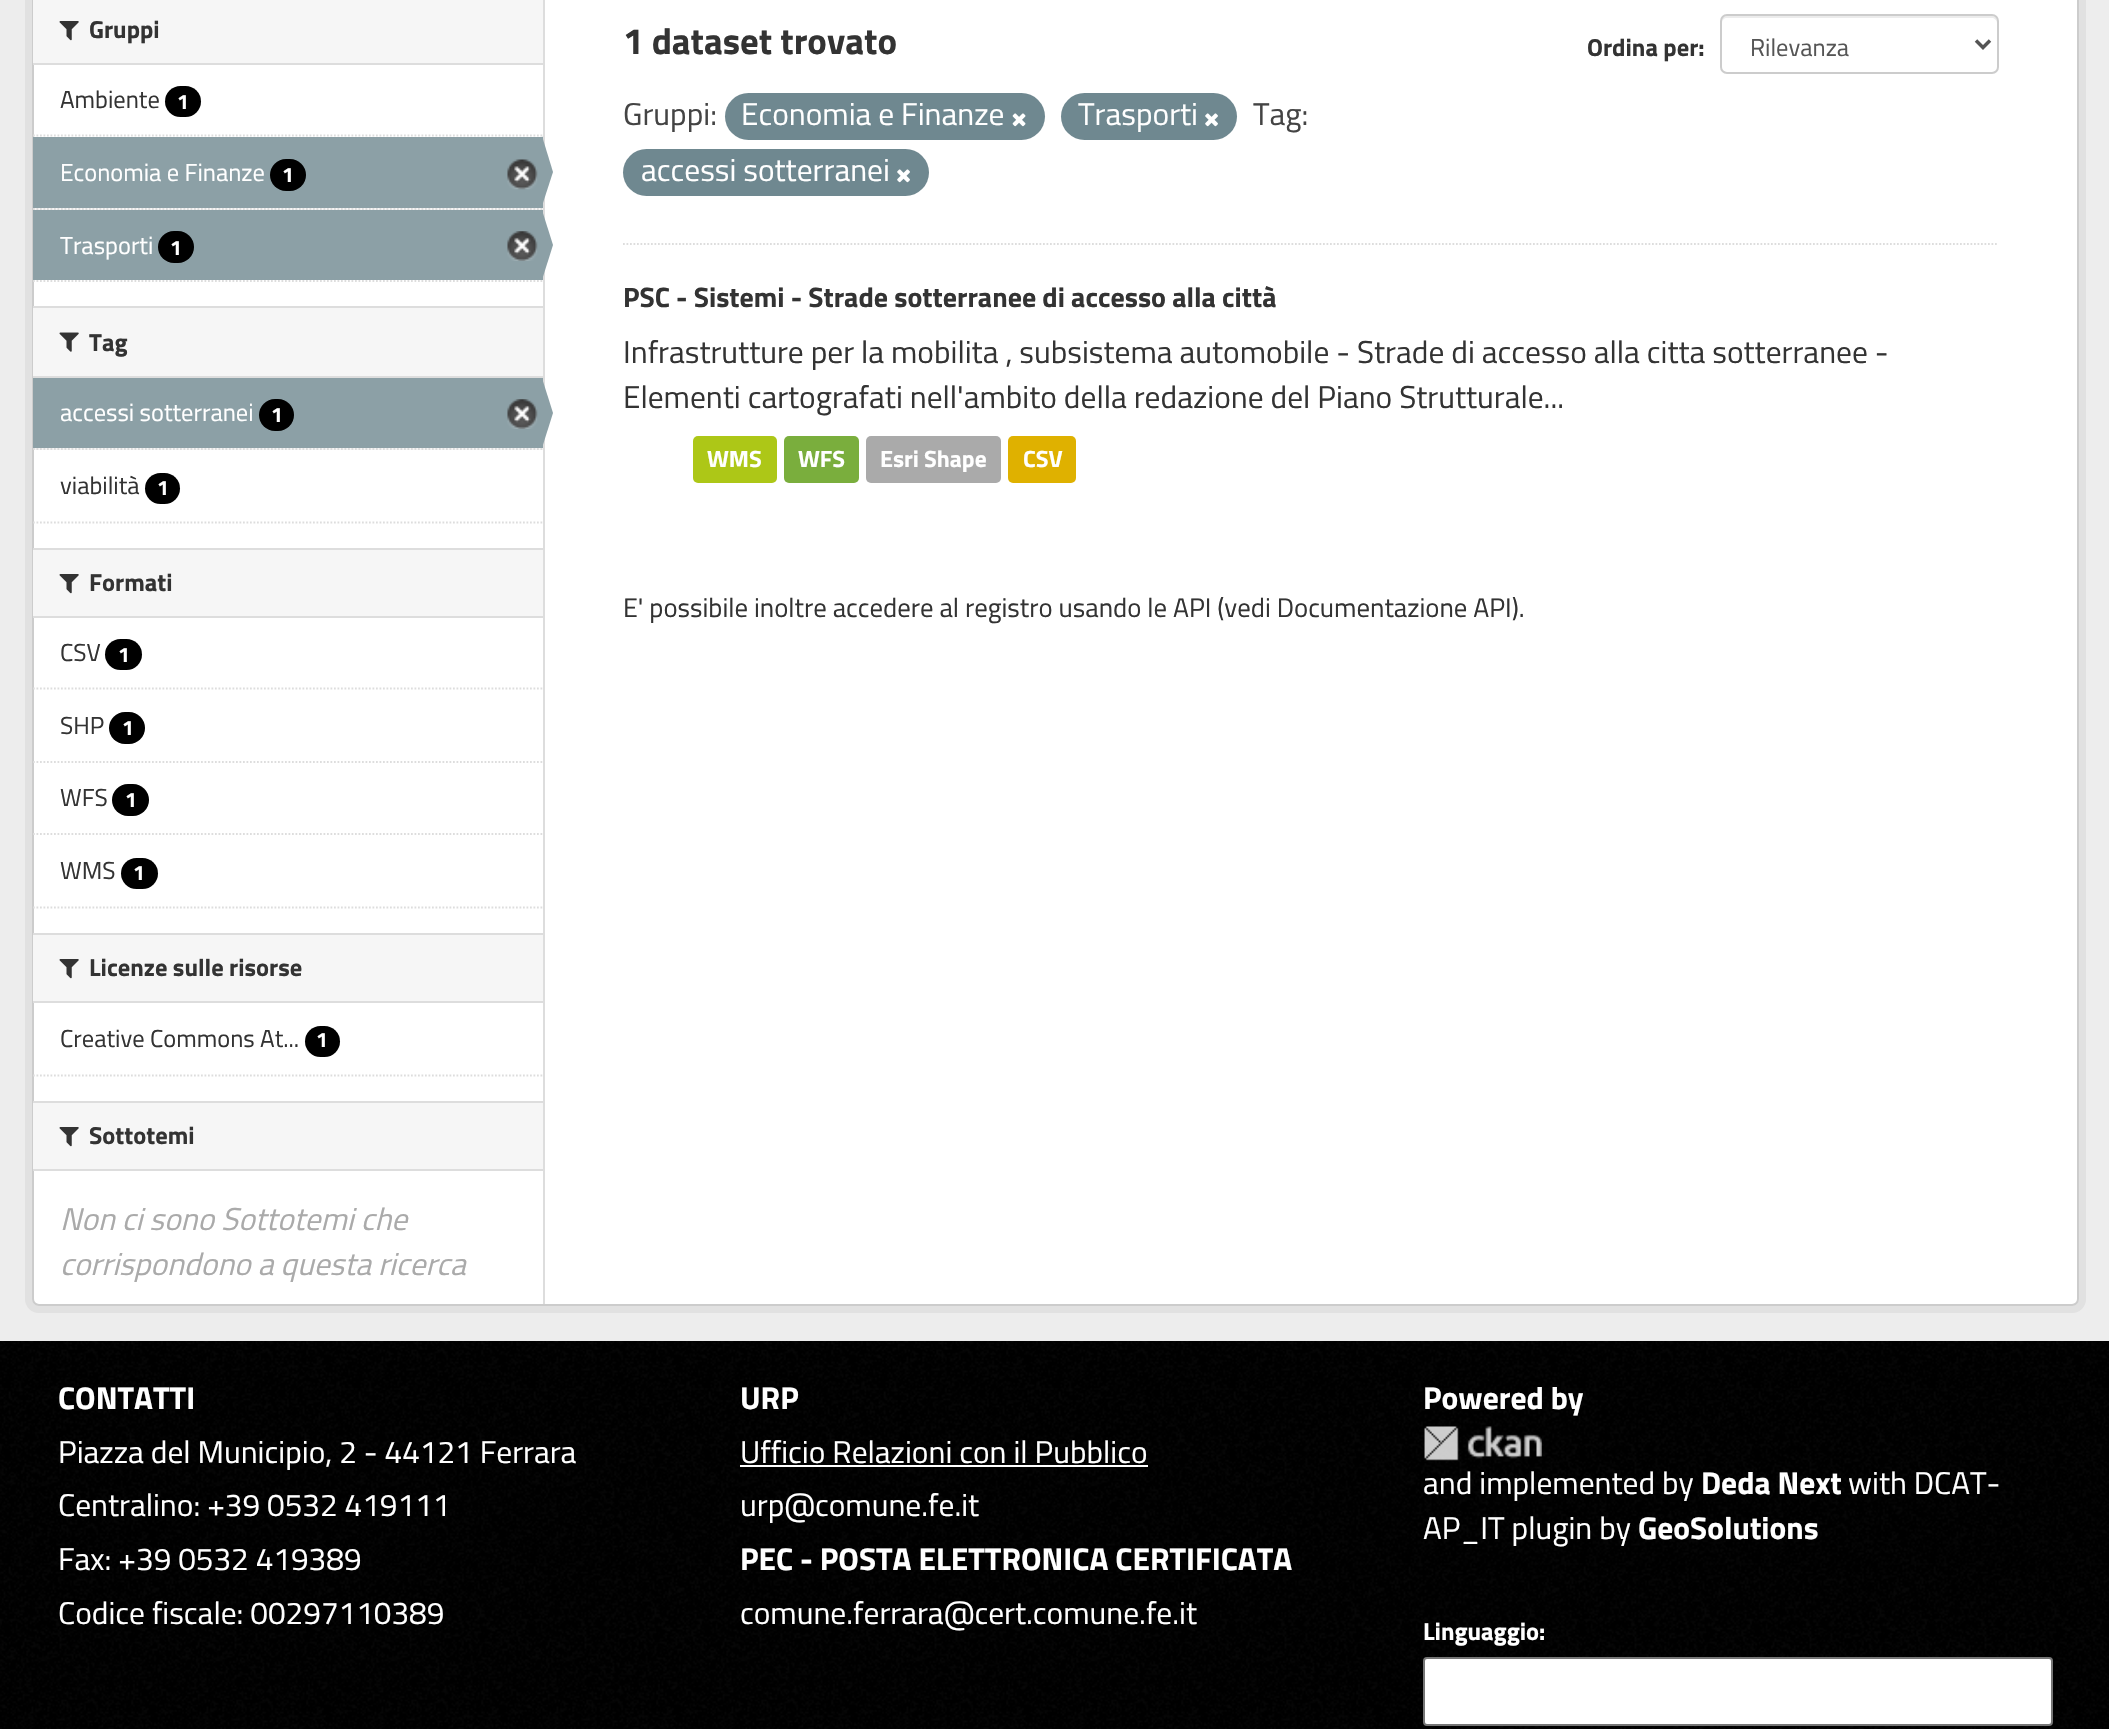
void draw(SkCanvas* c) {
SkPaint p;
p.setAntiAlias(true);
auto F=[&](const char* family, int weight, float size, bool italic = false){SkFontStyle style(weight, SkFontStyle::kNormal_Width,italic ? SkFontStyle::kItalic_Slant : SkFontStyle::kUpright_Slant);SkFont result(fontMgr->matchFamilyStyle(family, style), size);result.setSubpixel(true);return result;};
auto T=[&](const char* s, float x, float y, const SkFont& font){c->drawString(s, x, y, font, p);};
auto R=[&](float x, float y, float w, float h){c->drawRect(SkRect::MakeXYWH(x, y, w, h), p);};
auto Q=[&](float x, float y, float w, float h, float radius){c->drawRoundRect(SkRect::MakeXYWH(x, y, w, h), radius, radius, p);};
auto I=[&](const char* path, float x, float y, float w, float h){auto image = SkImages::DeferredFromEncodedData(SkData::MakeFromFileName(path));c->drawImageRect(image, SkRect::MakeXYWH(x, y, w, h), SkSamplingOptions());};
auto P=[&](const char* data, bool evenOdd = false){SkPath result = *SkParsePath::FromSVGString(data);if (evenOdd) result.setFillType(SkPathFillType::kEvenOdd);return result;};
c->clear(0xff000000);
p.setColor(0xffededed);
R(0,0,2109,1341);
p.setStroke(true);
p.setStrokeWidth(7);
p.setColor(0xffe1e1e1);
c->drawRoundRect(SkRect::MakeXYWH(28.5,-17.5,2054,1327),10.5,10.5,p);
p.setStroke(false);
p.setColor(0xffffffff);
c->drawRoundRect(SkRect::MakeXYWH(33,-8,2045,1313),6,6,p);
p.setStroke(true);
p.setStrokeWidth(2);
p.setColor(0xffcccccc);
c->drawRoundRect(SkRect::MakeXYWH(33,-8,2045,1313),6,6,p);
p.setStroke(false);
p.setColor(0xfff6f6f6);
R(33,0,510,63);
p.setColor(0xffdddddd);
R(33,63,510,2);
I("1.png",59,21,20,20);
auto f1 = F("Titillium Web",700,24.5);
p.setColor(0xff333333);
T("Gruppi",89,38,f1);
p.setStroke(true);
p.setStrokeWidth(1.8);
p.setColor(0xffdddddd);
p.setPathEffect(SkDashPathEffect::Make({{1.75f,1.75f}}, 0));
c->drawPath(P("M33 135.5h509.5"),p);
p.setPathEffect(nullptr);
auto f2 = F("Titillium Web",400,24.5);
p.setStroke(false);
p.setColor(0xff333333);
T("Ambiente",60,108,f2);
p.setColor(0xff000000);
Q(165,86,36,31,15.5);
auto f3 = F("Titillium Web",700,21);
p.setColor(0xffffffff);
T("1",177,109,f3);
p.setColor(0xfff6f6f6);
R(33,208,510,2);
p.setStroke(true);
p.setColor(0xffdddddd);
p.setPathEffect(SkDashPathEffect::Make({{1.75f,1.75f}}, 0));
c->drawPath(P("M33 209h509.5"),p);
p.setPathEffect(nullptr);
p.setStroke(false);
p.setColor(0xff8ca0a6);
R(33,137,510,71);
p.setColor(0xffffffff);
T("Economia e Finanze",60,181,f2);
p.setColor(0xff000000);
Q(270,159,36,32,16);
p.setColor(0xffffffff);
T("1",282,182,f3);
I("2.png",507,159,31,31);
p.setColor(0xffdddddd);
R(543,0,2,1304);
p.setColor(0xff8ca0a6);
c->drawPath(P("M542 206v-70l11 36z"),p);
R(33,210,510,70);
p.setColor(0xffffffff);
T("Trasporti",60,254,f2);
p.setColor(0xff000000);
Q(158,231,36,32,16);
p.setColor(0xffffffff);
T("1",170,255,f3);
I("3.png",507,231,31,30);
p.setColor(0xff8ca0a6);
c->drawPath(P("M542 280v-70l11 35z"),p);
p.setStroke(true);
p.setColor(0xffdddddd);
p.setPathEffect(SkDashPathEffect::Make({{1.75f,1.75f}}, 0));
c->drawPath(P("M33 281h509.5"),p);
p.setPathEffect(nullptr);
p.setStroke(false);
p.setColor(0xfff6f6f6);
R(33,308,510,68);
p.setColor(0xffdddddd);
R(33,306,510,2);
R(33,376,510,2);
I("4.png",59,332,20,20);
p.setColor(0xff333333);
T("Tag",89,351,f1);
p.setColor(0xfff6f6f6);
R(33,448,510,2);
p.setStroke(true);
p.setColor(0xffdddddd);
p.setPathEffect(SkDashPathEffect::Make({{1.75f,1.75f}}, 0));
c->drawPath(P("M33 449h509.5"),p);
p.setPathEffect(nullptr);
p.setStroke(false);
p.setColor(0xff8ca0a6);
R(33,378,510,70);
p.setColor(0xffffffff);
T("accessi sotterranei",60,421,f2);
p.setColor(0xff000000);
Q(259,399,35,32,16);
p.setColor(0xffffffff);
T("1",271,422,f3);
I("3.png",507,399,31,30);
p.setColor(0xff8ca0a6);
c->drawPath(P("M542 448v-70l11 35z"),p);
p.setColor(0xff333333);
T("viabilità",60,494,f2);
p.setColor(0xff000000);
Q(145,473,35,31,15.5);
p.setColor(0xffffffff);
T("1",157,495,f3);
p.setStroke(true);
p.setColor(0xffdddddd);
p.setPathEffect(SkDashPathEffect::Make({{1.75f,1.75f}}, 0));
c->drawPath(P("M33 522.5h509.5"),p);
p.setPathEffect(nullptr);
p.setStroke(false);
p.setColor(0xfff6f6f6);
R(33,550,510,66);
p.setColor(0xffdddddd);
R(33,548,510,2);
R(33,616,510,2);
I("1.png",59,574,20,20);
p.setColor(0xff333333);
T("Formati",89,591,f1);
p.setStroke(true);
p.setColor(0xffdddddd);
p.setPathEffect(SkDashPathEffect::Make({{1.75f,1.75f}}, 0));
c->drawPath(P("M33 688.5h509.5"),p);
p.setPathEffect(nullptr);
p.setStroke(false);
p.setColor(0xff333333);
T("CSV",60,661,f2);
p.setColor(0xff000000);
Q(105,639,37,31,15.5);
p.setColor(0xffffffff);
T("1",118,662,f3);
p.setStroke(true);
p.setColor(0xffdddddd);
p.setPathEffect(SkDashPathEffect::Make({{1.75f,1.75f}}, 0));
c->drawPath(P("M33 762h509.5"),p);
p.setPathEffect(nullptr);
p.setStroke(false);
p.setColor(0xff333333);
T("SHP",60,734,f2);
p.setColor(0xff000000);
Q(109,712,36,32,16);
p.setColor(0xffffffff);
T("1",122,735,f3);
p.setStroke(true);
p.setColor(0xffdddddd);
p.setPathEffect(SkDashPathEffect::Make({{1.75f,1.75f}}, 0));
c->drawPath(P("M33 834h509.5"),p);
p.setPathEffect(nullptr);
p.setStroke(false);
p.setColor(0xff333333);
T("WFS",60,806,f2);
p.setColor(0xff000000);
Q(112,784,37,32,16);
p.setColor(0xffffffff);
T("1",125,807,f3);
p.setColor(0xff333333);
T("WMS",60,879,f2);
p.setColor(0xff000000);
Q(121,858,37,31,15.5);
p.setColor(0xffffffff);
T("1",133,880,f3);
p.setStroke(true);
p.setColor(0xffdddddd);
p.setPathEffect(SkDashPathEffect::Make({{1.75f,1.75f}}, 0));
c->drawPath(P("M33 907.5h509.5"),p);
p.setPathEffect(nullptr);
p.setStroke(false);
p.setColor(0xfff6f6f6);
R(33,935,510,66);
p.setColor(0xffdddddd);
R(33,933,510,2);
R(33,1001,510,2);
I("1.png",59,959,20,20);
p.setColor(0xff333333);
T("Licenze sulle risorse",89,976,f1);
T("Creative Commons At...",60,1047,f2);
p.setColor(0xff000000);
Q(305,1026,35,31,15.5);
p.setColor(0xffffffff);
T("1",316,1047,f3);
p.setStroke(true);
p.setColor(0xffdddddd);
p.setPathEffect(SkDashPathEffect::Make({{1.75f,1.75f}}, 0));
c->drawPath(P("M33 1075.5h509.5"),p);
p.setPathEffect(nullptr);
p.setStroke(false);
p.setColor(0xfff6f6f6);
R(33,1103,510,66);
p.setColor(0xffdddddd);
R(33,1101,510,2);
R(33,1169,510,2);
I("1.png",59,1127,20,20);
p.setColor(0xff333333);
T("Sottotemi",89,1144,f1);
auto f4 = F("Titillium Web",400,31.5,true);
p.setColor(0xffaaaaaa);
T("Non ci sono Sottotemi che",60,1230,f4);
T("corrispondono a questa ricerca",60,1275,f4);
p.setStroke(true);
p.setColor(0xffdddddd);
p.setPathEffect(SkDashPathEffect::Make({{1.75f,1.75f}}, 0));
c->drawPath(P("M623 244h1375.5"),p);
p.setPathEffect(nullptr);
auto f5 = F("Titillium Web",700,36.75);
p.setStroke(false);
p.setColor(0xff333333);
T("1 dataset trovato",623,54,f5);
T("Ordina per:",1587,56,f1);
p.setColor(0xffececec);
c->drawPath(P("M1727 18h265c2 0 5 2 5 5v-2c0-3-2-5-5-5h-265c-3 0-5 2-5 5v2c0-3 2-5 5-5z"),p);
p.setStroke(true);
p.setStrokeWidth(2);
p.setColor(0xffcccccc);
c->drawRoundRect(SkRect::MakeXYWH(1721,15,277,58),6,6,p);
p.setStrokeWidth(3.5);
p.setColor(0xff555555);
c->drawPath(P("M1976 40.5l7 7l7-7"),p);
p.setStroke(false);
T("Rilevanza",1750,56,f2);
auto f6 = F("Titillium Web",400,31.5);
p.setColor(0xff444444);
T("Gruppi:",623,125,f6);
p.setColor(0xff6f8890);
Q(725,93,320,47,23.5);
p.setColor(0xffffffff);
T("Economia e Finanze",741,125,f6);
I("5.png",1012,113,14,14);
p.setColor(0xff6f8890);
Q(1061,93,176,47,23.5);
p.setColor(0xffffffff);
T("Trasporti",1078,125,f6);
I("6.png",1205,113,13,14);
p.setColor(0xff444444);
T("Tag:",1253,125,f6);
p.setColor(0xff6f8890);
Q(623,149,306,47,23.5);
p.setColor(0xffffffff);
T("accessi sotterranei",641,181,f6);
I("7.png",897,169,13,14);
auto f7 = F("Titillium Web",700,28);
p.setColor(0xff333333);
T("PSC - Sistemi - Strade sotterranee di accesso alla città",623,307,f7);
T("Infrastrutture per la mobilita , subsistema automobile - Strade di accesso alla citta sotterranee -",623,363,f6);
T("Elementi cartografati nell'ambito della redazione del Piano Strutturale...",623,408,f6);
p.setColor(0xffadc717);
Q(693,436,84,47,5);
auto f8 = F("Titillium Web",700,23.5);
p.setColor(0xffffffff);
T("WMS",707,467,f8);
p.setColor(0xff7aae3d);
Q(784,436,75,47,5);
p.setColor(0xffffffff);
T("WFS",798,467,f8);
p.setColor(0xffaaaaaa);
Q(866,436,135,47,5);
p.setColor(0xffffffff);
T("Esri Shape",880,467,f8);
p.setColor(0xffdfb100);
Q(1008,436,68,47,5);
p.setColor(0xffffffff);
T("CSV",1023,467,f8);
auto f9 = F("Titillium Web",400,26.8);
p.setColor(0xff333333);
T("E' possibile inoltre accedere al registro usando le API (vedi Documentazione API).",623,617,f9);
I("8.png",0,1341,2109,388);
auto f10 = F("Titillium Web",700,31.5);
p.setColor(0xffffffff);
T("CONTATTI",58,1409,f10);
T("Piazza del Municipio, 2 - 44121 Ferrara",58,1463,f6);
T("Centralino: +39 0532 419111",58,1516,f6);
T("Fax: +39 0532 419389",58,1570,f6);
T("Codice fiscale: 00297110389",58,1624,f6);
T("URP",740,1409,f10);
T("Ufficio Relazioni con il Pubblico",740,1463,f6);
R(740,1465,408,2);
T("urp@comune.fe.it",740,1516,f6);
T("PEC - POSTA ELETTRONICA CERTIFICATA",740,1570,f10);
T("comune.ferrara@cert.comune.fe.it",740,1624,f6);
T("Powered by",1423,1409,f10);
I("9.png",1424,1426,118,35);
T("and implemented by",1423,1494,f6);
T("Deda Next",1701,1494,f10);
T("with DCAT-",1848,1494,f6);
T("AP_IT plugin by",1423,1539,f6);
T("GeoSolutions",1638,1539,f10);
T("Linguaggio:",1423,1640,f1);
c->drawRoundRect(SkRect::MakeXYWH(1424,1658,628,67),3,3,p);
p.setStroke(true);
p.setStrokeWidth(2);
p.setColor(0xff767676);
c->drawRoundRect(SkRect::MakeXYWH(1424,1658,628,67),3,3,p);
}
